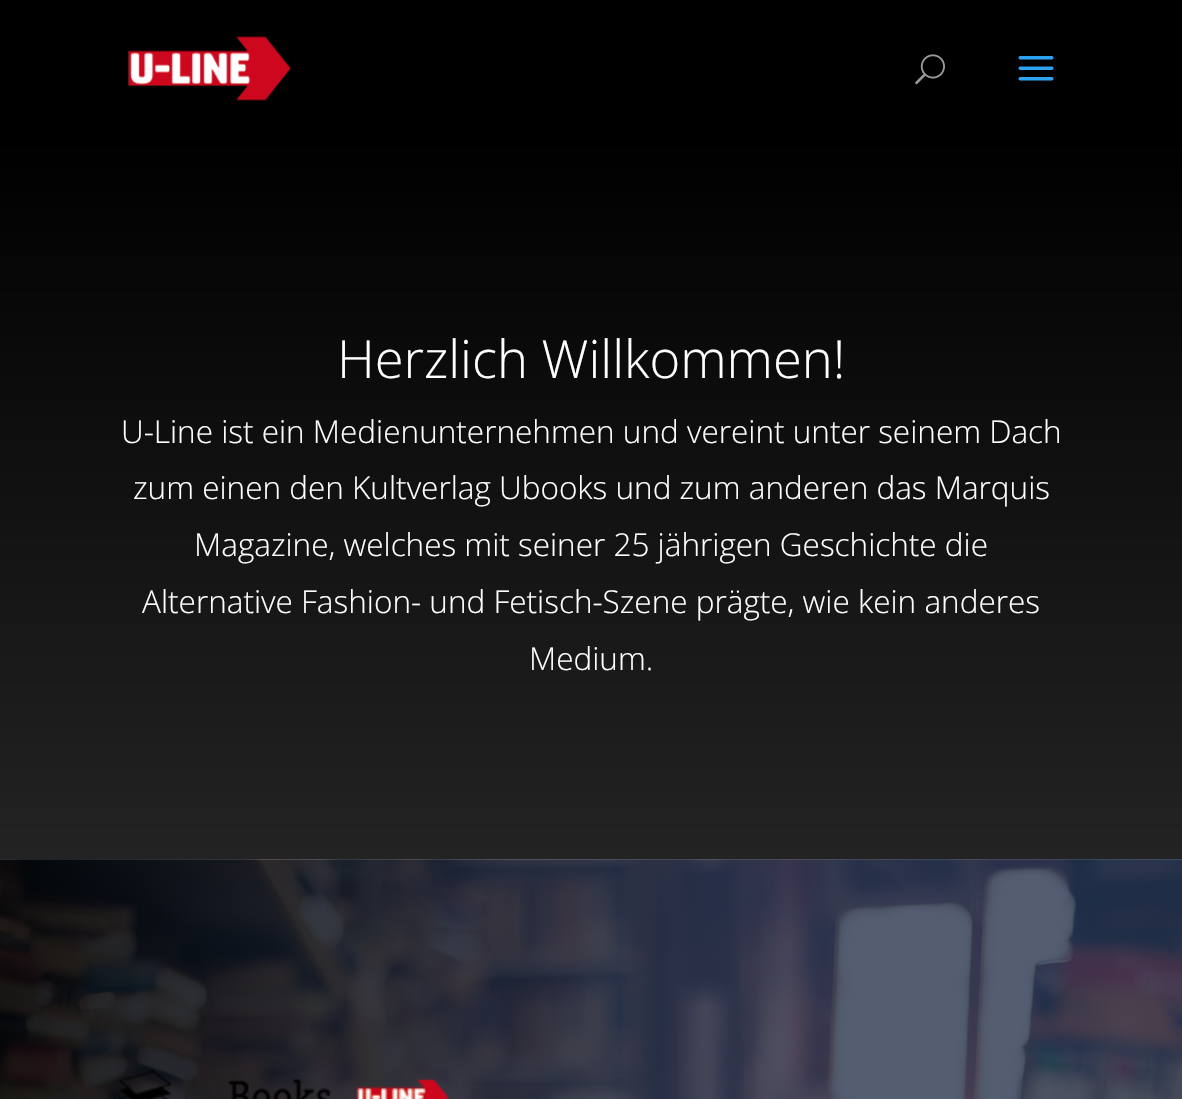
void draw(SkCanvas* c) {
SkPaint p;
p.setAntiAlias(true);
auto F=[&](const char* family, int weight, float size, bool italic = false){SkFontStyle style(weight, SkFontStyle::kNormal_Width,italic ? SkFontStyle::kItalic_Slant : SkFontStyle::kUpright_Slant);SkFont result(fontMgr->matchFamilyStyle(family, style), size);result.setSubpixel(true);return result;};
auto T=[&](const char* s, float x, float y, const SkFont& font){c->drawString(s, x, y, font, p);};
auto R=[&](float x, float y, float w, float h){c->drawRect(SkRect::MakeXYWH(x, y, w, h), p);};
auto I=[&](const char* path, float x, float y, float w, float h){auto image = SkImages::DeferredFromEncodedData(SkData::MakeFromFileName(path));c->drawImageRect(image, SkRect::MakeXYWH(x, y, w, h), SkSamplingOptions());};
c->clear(0xffffffff);
p.setColor(0xff000000);
R(0,0,1182,140);
I("1.png",128,36,163,65);
I("2.png",915,54,30,31);
I("3.png",1018,56,36,25);
{
const SkColor colors[] = {0xff000000,0xff232323};
const float stops[] = {0,1};
const SkPoint ends[] = {{592,138}, {592,859}};
p.setShader(SkGradientShader::MakeLinear(ends, colors, stops, 2, SkTileMode::kClamp));
p.setAlpha(255);
}
R(0,140,1182,719);
auto f1 = F("Open Sans",300,52.5);
p.setShader(nullptr);
p.setColor(0xffffffff);
T("Herzlich Willkommen!",337,378,f1);
auto f2 = F("Open Sans",300,31.5);
T("U-Line ist ein Medienunternehmen und vereint unter seinem Dach",121,443,f2);
T("zum einen den Kultverlag Ubooks und zum anderen das Marquis",133,499,f2);
T("Magazine, welches mit seiner 25 jährigen Geschichte die",194,556,f2);
T("Alternative Fashion- und Fetisch-Szene prägte, wie kein anderes",142,613,f2);
T("Medium.",529,670,f2);
I("4.png",0,859,1182,240);
I("5.png",119,1069,330,30);
}
